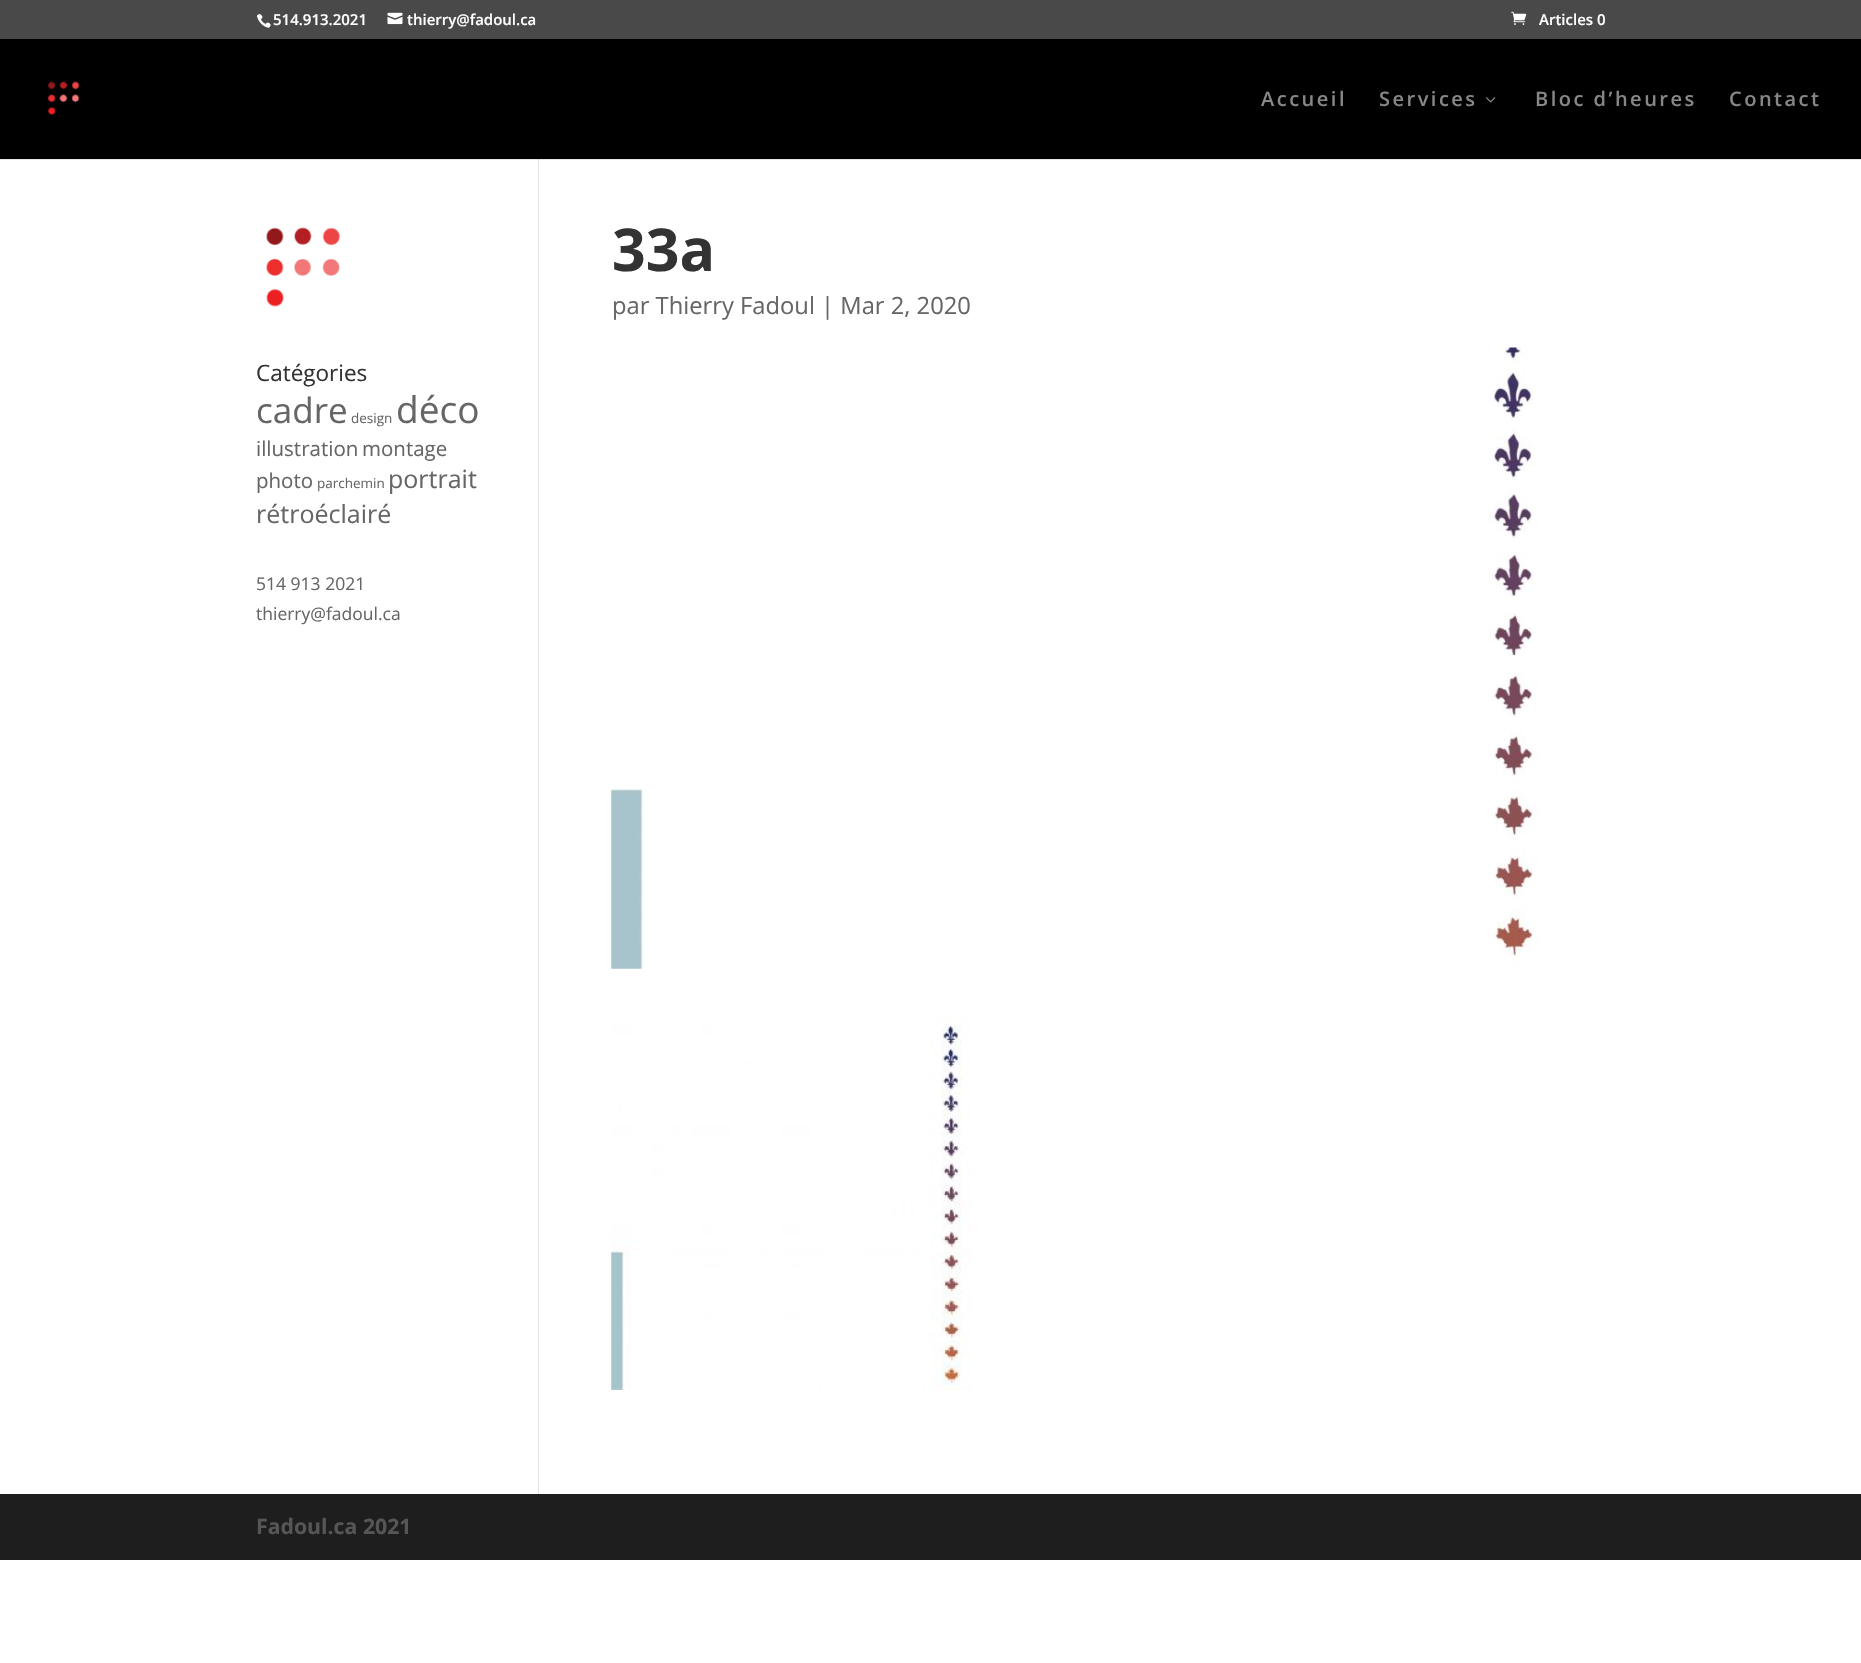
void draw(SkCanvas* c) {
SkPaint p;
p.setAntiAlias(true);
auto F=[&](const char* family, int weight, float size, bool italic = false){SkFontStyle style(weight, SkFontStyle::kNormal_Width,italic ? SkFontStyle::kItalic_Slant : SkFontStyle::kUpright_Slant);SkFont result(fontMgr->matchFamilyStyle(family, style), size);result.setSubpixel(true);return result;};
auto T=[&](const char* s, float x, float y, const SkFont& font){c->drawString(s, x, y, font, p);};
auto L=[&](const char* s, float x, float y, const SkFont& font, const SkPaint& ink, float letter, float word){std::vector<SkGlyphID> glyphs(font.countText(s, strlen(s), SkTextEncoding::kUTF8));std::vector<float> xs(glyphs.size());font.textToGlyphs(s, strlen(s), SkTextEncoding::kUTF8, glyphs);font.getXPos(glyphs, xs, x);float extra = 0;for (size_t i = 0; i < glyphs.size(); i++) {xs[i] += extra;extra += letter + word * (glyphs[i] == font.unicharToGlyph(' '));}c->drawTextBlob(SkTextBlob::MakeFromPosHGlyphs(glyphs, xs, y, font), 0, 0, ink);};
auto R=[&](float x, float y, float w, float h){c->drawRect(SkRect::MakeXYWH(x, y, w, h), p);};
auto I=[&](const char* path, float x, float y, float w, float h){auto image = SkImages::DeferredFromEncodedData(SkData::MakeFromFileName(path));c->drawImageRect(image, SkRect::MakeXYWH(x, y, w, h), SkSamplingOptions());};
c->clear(0xffffffff);
p.setColor(0xffe6e6e6);
R(0,159,1861,1);
p.setColor(0xff494949);
R(0,0,1861,39);
I("1.png",256,14,15,14);
auto f1 = F("Open Sans",600,15);
p.setColor(0xffffffff);
T("514.913.2021",273,25,f1);
I("2.png",387,12,16,13);
T("thierry@fadoul.ca",407,25,f1);
I("3.png",1511,11,16,14);
T("Articles 0",1539,25,f1);
p.setColor(0xff000000);
R(0,39,1861,120);
I("4.png",48,81,32,35);
auto f2 = F("Open Sans",600,20);
p.setColor(0xff878787);
L("Accueil",1261,106,f2,p,2.5,0);
L("Services",1379,106,f2,p,2.5,0);
I("5.png",1486,97,10,6);
L("Bloc d’heures",1535,106,f2,p,2.5,0);
L("Contact",1729,106,f2,p,2.5,0);
p.setColor(0xffe2e2e2);
R(538,160,1,1334);
p.setColor(0xffcbcbcb);
R(538,159,1,1);
auto f3 = F("Open Sans",700,59);
p.setColor(0xff333333);
T("33a",612,271,f3);
auto f4 = F("Open Sans",400,23.75);
p.setColor(0xff666666);
T("par Thierry Fadoul | Mar 2, 2020",612,314,f4);
I("6.png",611,347,929,622);
I("7.png",611,1018,361,372);
I("8.png",266,227,74,80);
auto f5 = F("Open Sans",400,22.5);
p.setColor(0xff333333);
T("Catégories",256,381,f5);
auto f6 = F("Open Sans",400,35);
p.setColor(0xff666666);
T("cadre",256,423,f6);
auto f7 = F("Open Sans",400,13.5);
T("design",351,423,f7);
auto f8 = F("Open Sans",400,37);
T("déco",396,423,f8);
auto f9 = F("Open Sans",400,20.5);
T("illustration",256,456,f9);
T("montage",362,456,f9);
T("photo",256,488,f9);
T("parchemin",317,488,f7);
auto f10 = F("Open Sans",400,25);
T("portrait",388,488,f10);
T("rétroéclairé",256,523,f10);
auto f11 = F("Open Sans",400,17.5);
T("514 913 2021",256,590,f11);
T("thierry@fadoul.ca",256,620,f11);
p.setColor(0xff1e1e1e);
R(0,1494,1861,66);
auto f12 = F("Open Sans",700,21.25);
p.setColor(0xff565656);
T("Fadoul.ca 2021",256,1534,f12);
}
